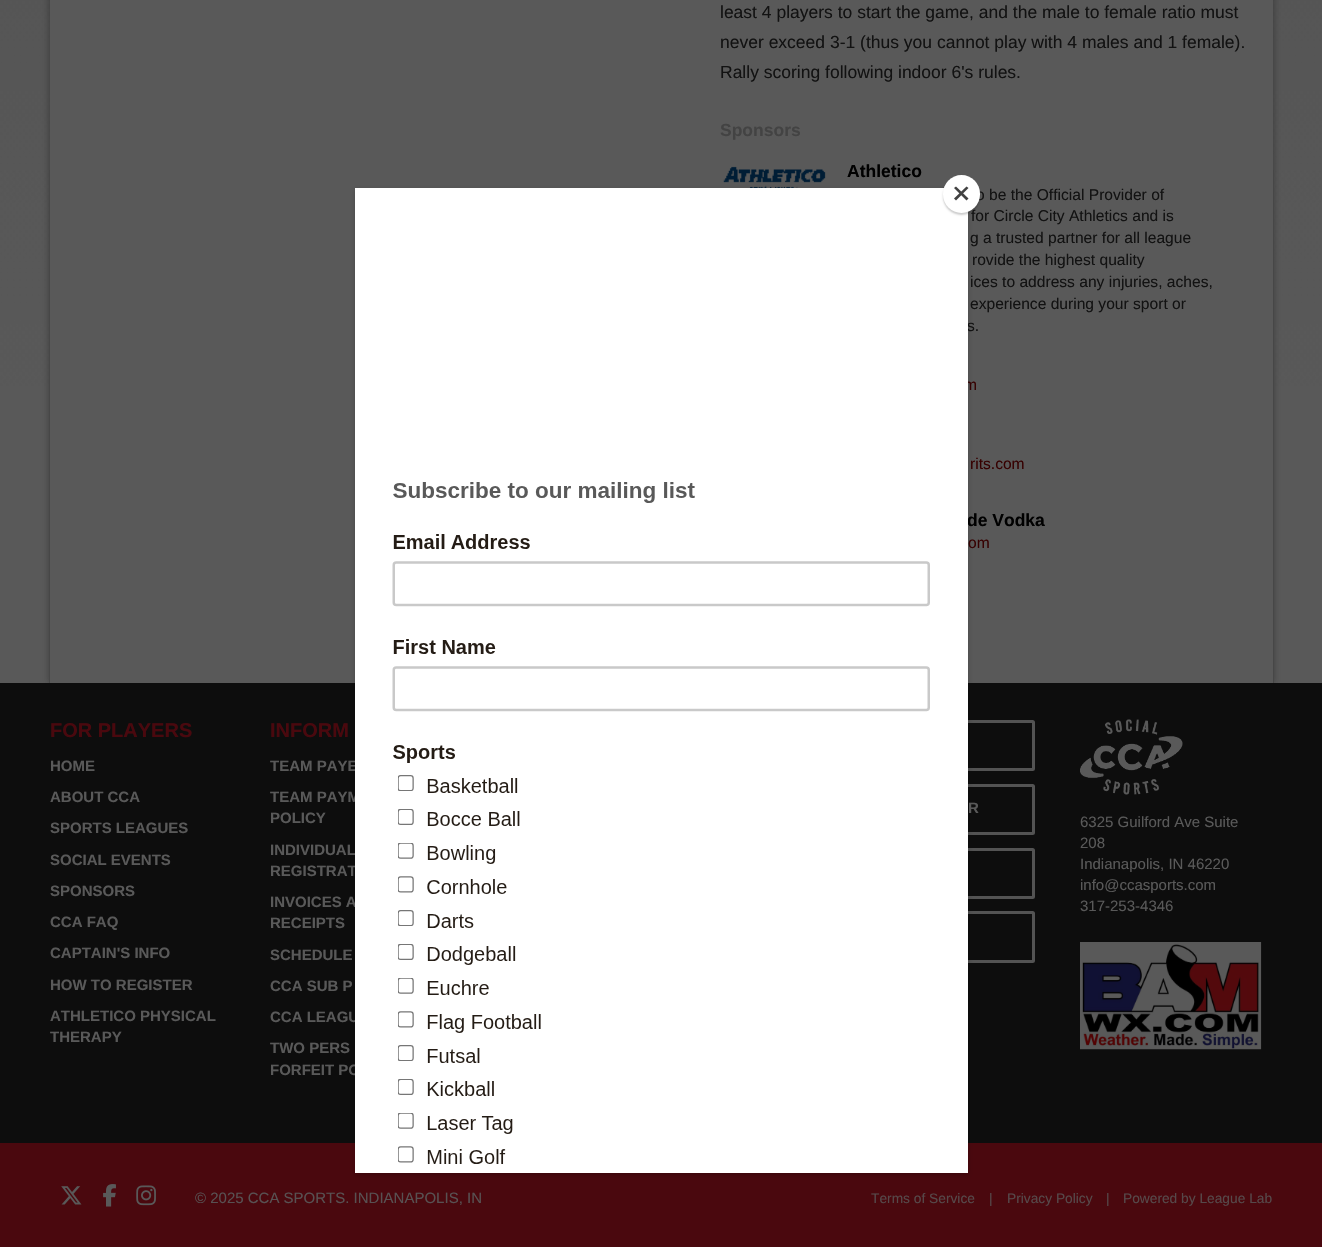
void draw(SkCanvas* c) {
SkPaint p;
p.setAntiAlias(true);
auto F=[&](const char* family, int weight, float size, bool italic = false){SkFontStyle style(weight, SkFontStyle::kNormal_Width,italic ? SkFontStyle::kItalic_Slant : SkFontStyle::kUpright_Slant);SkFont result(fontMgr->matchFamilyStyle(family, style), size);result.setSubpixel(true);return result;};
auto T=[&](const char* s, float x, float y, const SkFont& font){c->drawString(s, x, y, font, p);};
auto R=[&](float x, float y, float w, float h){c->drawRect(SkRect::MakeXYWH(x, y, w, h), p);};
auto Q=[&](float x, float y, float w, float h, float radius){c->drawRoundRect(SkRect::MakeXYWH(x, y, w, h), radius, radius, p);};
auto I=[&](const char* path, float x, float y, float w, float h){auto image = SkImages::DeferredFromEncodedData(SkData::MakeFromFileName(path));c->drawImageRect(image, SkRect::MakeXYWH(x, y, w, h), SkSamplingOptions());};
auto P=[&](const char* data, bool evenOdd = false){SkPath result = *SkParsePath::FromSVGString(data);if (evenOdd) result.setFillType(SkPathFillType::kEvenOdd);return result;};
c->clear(0xff595959);
I("1.png",0,0,1322,386);
p.setColor(0x26000000);
p.setMaskFilter(SkMaskFilter::MakeBlur(kNormal_SkBlurStyle, 3));
c->drawRect(SkRect::MakeXYWH(48,-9,1225,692),p);
p.setMaskFilter(nullptr);
p.setMaskFilter(SkMaskFilter::MakeBlur(kNormal_SkBlurStyle, 3));
c->drawRect(SkRect::MakeXYWH(50,-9,1225,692),p);
p.setMaskFilter(nullptr);
p.setColor(0xff595959);
R(50,0,1223,683);
p.setColor(0xff474747);
R(1273,170,1,513);
R(49,170,1,513);
auto f1 = F("Liberation Sans",400,17.5);
p.setColor(0xff121212);
T("least 4 players to start the game, and the male to female ratio must",720,18,f1);
T("never exceed 3-1 (thus you cannot play with 4 males and 1 female).",720,48,f1);
T("Rally scoring following indoor 6's rules.",720,78,f1);
auto f2 = F("Liberation Sans",700,17.5);
p.setColor(0xff434343);
T("Sponsors",720,136,f2);
I("2.png",723,166,103,22);
p.setColor(0xff000000);
T("Athletico",847,177,f2);
auto f3 = F("Liberation Sans",400,15.6);
p.setColor(0xff121212);
T("o be the Official Provider of",976,200,f3);
T("for Circle City Athletics and is",971,221,f3);
T("g a trusted partner for all league",970,243,f3);
T("rovide the highest quality",972,265,f3);
T("ices to address any injuries, aches,",970,287,f3);
T("experience during your sport or",970,309,f3);
T("s.",967,331,f3);
p.setColor(0xff360000);
T("m",964,390,f3);
T("rits.com",970,469,f3);
p.setColor(0xff000000);
T("de Vodka",967,526,f2);
p.setColor(0xff360000);
T("om",968,548,f3);
p.setColor(0xff0d0d0d);
R(0,683,1322,460);
p.setStroke(true);
p.setStrokeWidth(3);
p.setColor(0xff535353);
c->drawRoundRect(SkRect::MakeXYWH(786.5,721.5,247,48),1,1,p);
c->drawRoundRect(SkRect::MakeXYWH(786.5,785.5,247,48),1,1,p);
c->drawRoundRect(SkRect::MakeXYWH(786.5,849.5,247,48),1,1,p);
c->drawRoundRect(SkRect::MakeXYWH(786.5,912.5,247,49),1,1,p);
p.setStroke(false);
p.setColor(0xff4a080e);
R(0,1143,1322,104);
p.setColor(0x33000000);
p.setMaskFilter(SkMaskFilter::MakeBlur(kNormal_SkBlurStyle, 2.5));
c->drawRect(SkRect::MakeXYWH(355,190,613,985),p);
p.setMaskFilter(nullptr);
auto f4 = F("Liberation Sans",700,15);
p.setColor(0xff595959);
T("TEAM PAYE",270,771,f4);
T("TEAM PAYM",270,802,f4);
T("INDIVIDUAL",270,855,f4);
T("REGISTRAT",270,876,f4);
T("INVOICES A",270,907,f4);
T("CCA LEAGU",270,1022,f4);
T("FORFEIT PO",270,1075,f4);
I("3.png",355,188,613,985);
p.setColor(0x33000000);
p.setMaskFilter(SkMaskFilter::MakeBlur(kNormal_SkBlurStyle, 1));
c->drawRoundRect(SkRect::MakeXYWH(943,178,37,37),18.5,18.5,p);
p.setMaskFilter(nullptr);
p.setColor(0xffffffff);
Q(943,175,37,38,18.5);
p.setColor(0xff414141);
c->drawPath(P("M966.5 186.5l2 1.5l-12.5 12.5l-2-2z"),p);
c->drawPath(P("M954 188l2-1.5l12.5 12l-2 2z"),p);
auto f5 = F("Liberation Sans",700,20);
p.setColor(0xff4a080e);
T("FOR PLAYERS",50,737,f5);
p.setColor(0xff595959);
T("HOME",50,771,f4);
T("ABOUT CCA",50,802,f4);
T("SPORTS LEAGUES",50,833,f4);
T("SOCIAL EVENTS",50,865,f4);
T("SPONSORS",50,896,f4);
T("CCA FAQ",50,927,f4);
T("CAPTAIN'S INFO",50,958,f4);
T("HOW TO REGISTER",50,990,f4);
T("ATHLETICO PHYSICAL",50,1021,f4);
T("THERAPY",50,1042,f4);
p.setColor(0xff4a080e);
T("INFORM",270,737,f5);
p.setColor(0xff595959);
T("POLICY",270,823,f4);
T("RECEIPTS",270,928,f4);
T("SCHEDULE",270,960,f4);
T("CCA SUB P",270,991,f4);
T("TWO PERS",270,1053,f4);
T("R",968,813,f4);
I("4.png",1080,719,103,76);
auto f6 = F("Liberation Sans",400,15);
T("6325 Guilford Ave Suite",1080,827,f6);
T("208",1080,848,f6);
T("Indianapolis, IN 46220",1080,869,f6);
T("info@ccasports.com",1080,890,f6);
T("317-253-4346",1080,911,f6);
I("5.png",1080,942,182,108);
I("6.png",61,1186,21,19);
I("7.png",103,1184,13,23);
I("8.png",136,1185,20,21);
p.setColor(0xff585152);
T("© 2025 CCA SPORTS. INDIANAPOLIS, IN",195,1203,f6);
auto f7 = F("Liberation Sans",400,13.75);
p.setColor(0xff56494a);
T("Terms of Service",871,1203,f7);
T("|",989,1203,f7);
T("Privacy Policy",1007,1203,f7);
T("|",1106,1203,f7);
T("Powered by League Lab",1123,1203,f7);
}
